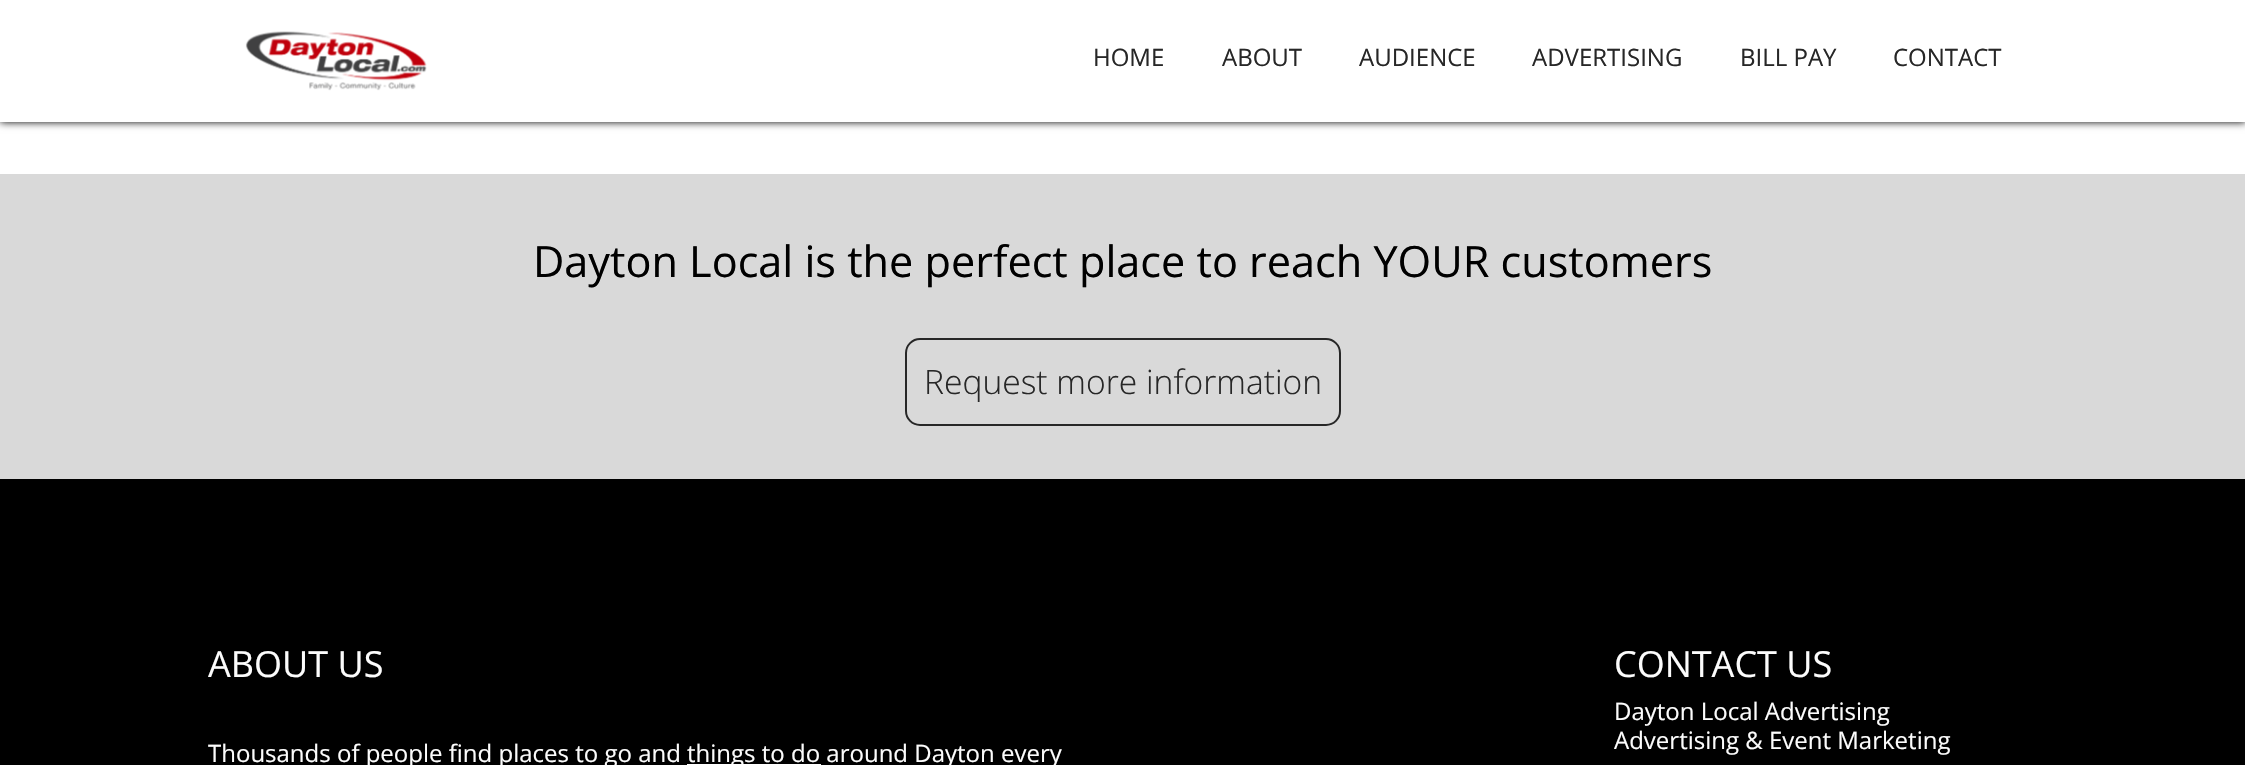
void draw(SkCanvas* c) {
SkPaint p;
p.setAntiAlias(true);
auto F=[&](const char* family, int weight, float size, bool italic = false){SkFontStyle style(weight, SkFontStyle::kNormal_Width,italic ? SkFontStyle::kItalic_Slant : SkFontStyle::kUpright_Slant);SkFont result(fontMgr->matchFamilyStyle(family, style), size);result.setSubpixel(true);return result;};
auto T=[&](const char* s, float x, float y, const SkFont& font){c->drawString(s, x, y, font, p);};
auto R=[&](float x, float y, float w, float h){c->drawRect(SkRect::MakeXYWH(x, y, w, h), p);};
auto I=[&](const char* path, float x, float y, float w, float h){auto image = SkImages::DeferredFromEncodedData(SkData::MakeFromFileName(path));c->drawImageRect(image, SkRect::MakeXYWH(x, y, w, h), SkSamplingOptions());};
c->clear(0xffffffff);
p.setColor(0xff000000);
p.setMaskFilter(SkMaskFilter::MakeBlur(kNormal_SkBlurStyle, 4));
c->drawRect(SkRect::MakeXYWH(0,0,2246,122),p);
p.setMaskFilter(nullptr);
p.setColor(0xffffffff);
R(0,0,2245,122);
I("1.png",245,31,182,60);
auto f1 = F("Open Sans",400,24);
p.setColor(0xff272727);
T("HOME",1093,66,f1);
T("ABOUT",1222,66,f1);
T("AUDIENCE",1359,66,f1);
T("ADVERTISING",1532,66,f1);
T("BILL PAY",1740,66,f1);
T("CONTACT",1893,66,f1);
p.setColor(0xffd9d9d9);
R(0,174,2245,305);
auto f2 = F("Open Sans",400,43.2);
p.setColor(0xff000000);
T("Dayton Local is the perfect place to reach YOUR customers",533,277,f2);
p.setStroke(true);
p.setStrokeWidth(2);
p.setColor(0xff272727);
c->drawRoundRect(SkRect::MakeXYWH(906,339,434,86),14,14,p);
auto f3 = F("Open Sans",300,33.6);
p.setStroke(false);
T("Request more information",924,394,f3);
p.setColor(0xff000000);
R(0,479,2245,286);
auto f4 = F("Open Sans",400,36);
p.setColor(0xfffcfcfc);
T("ABOUT US",208,677,f4);
T("Thousands of people find places to go and",208,762,f1);
p.setColor(0xffffffff);
R(687,764,134,1);
p.setColor(0xfffcfcfc);
T("things to do around Dayton every",687,762,f1);
T("CONTACT US",1614,677,f4);
T("Dayton Local Advertising",1614,720,f1);
T("Advertising & Event Marketing",1614,749,f1);
}
